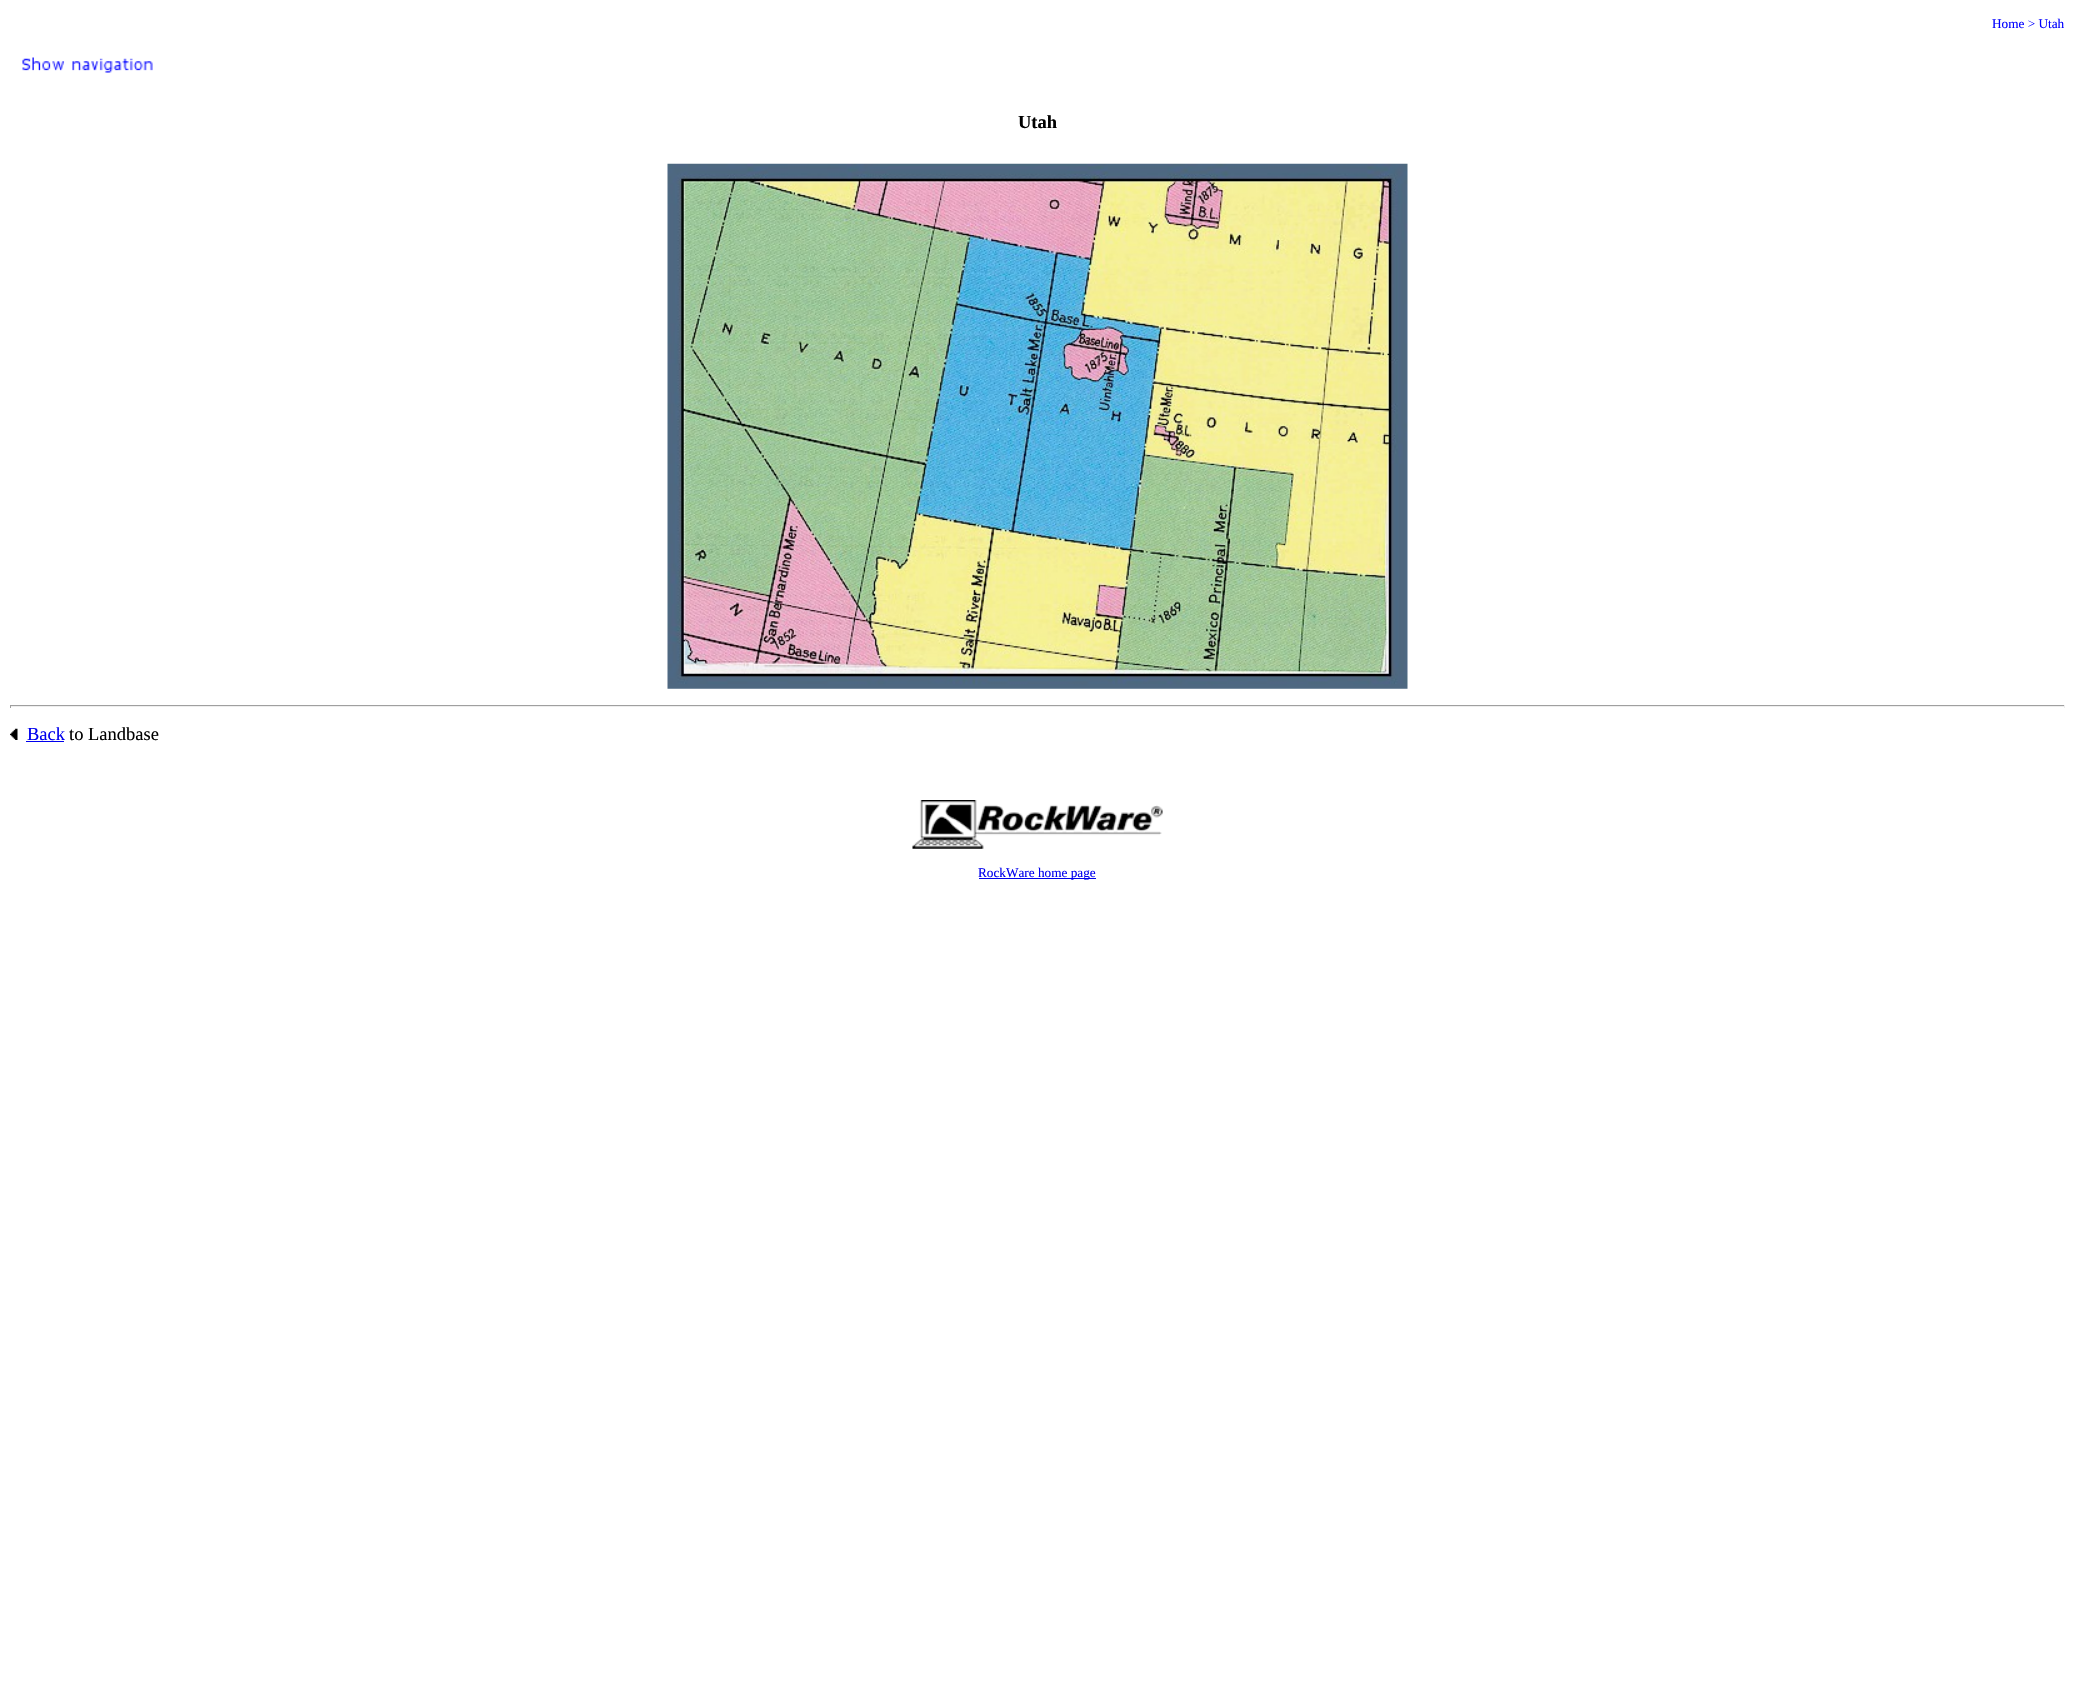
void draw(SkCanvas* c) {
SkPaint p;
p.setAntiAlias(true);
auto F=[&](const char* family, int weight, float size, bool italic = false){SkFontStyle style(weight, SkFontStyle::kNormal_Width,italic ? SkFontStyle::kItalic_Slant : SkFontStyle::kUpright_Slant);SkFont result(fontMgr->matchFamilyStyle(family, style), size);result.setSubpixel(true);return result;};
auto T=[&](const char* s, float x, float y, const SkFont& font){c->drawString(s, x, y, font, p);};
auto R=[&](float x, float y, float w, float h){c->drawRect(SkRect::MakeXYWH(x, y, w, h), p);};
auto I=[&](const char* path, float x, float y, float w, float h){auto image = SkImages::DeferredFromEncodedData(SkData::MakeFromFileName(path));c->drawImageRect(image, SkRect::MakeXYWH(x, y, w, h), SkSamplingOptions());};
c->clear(0xffffffff);
auto f1 = F("Liberation Serif",400,13.25);
p.setColor(0xff0000ff);
T("Home > Utah",1992,28,f1);
I("1.png",22,57,131,16);
auto f2 = F("Liberation Serif",700,18.5);
p.setColor(0xff000000);
T("Utah",1018,128,f2);
I("2.png",667,163,741,526);
p.setColor(0xff9f9f9f);
R(10,705,2055,1);
p.setColor(0xffeeeeee);
R(2064,705,1,3);
R(10,706,2055,1);
p.setColor(0xff9f9f9f);
R(10,705,1,3);
I("3.png",10,728,8,12);
auto f3 = F("Liberation Serif",400,18.5);
p.setColor(0xff0000ee);
T("Back",27,740,f3);
R(26,741,38,1);
p.setColor(0xff000000);
T("to Landbase",69,740,f3);
I("4.png",912,800,251,49);
p.setColor(0xff0000ee);
R(979,878,117,1);
T("RockWare home page",978,877,f1);
}
